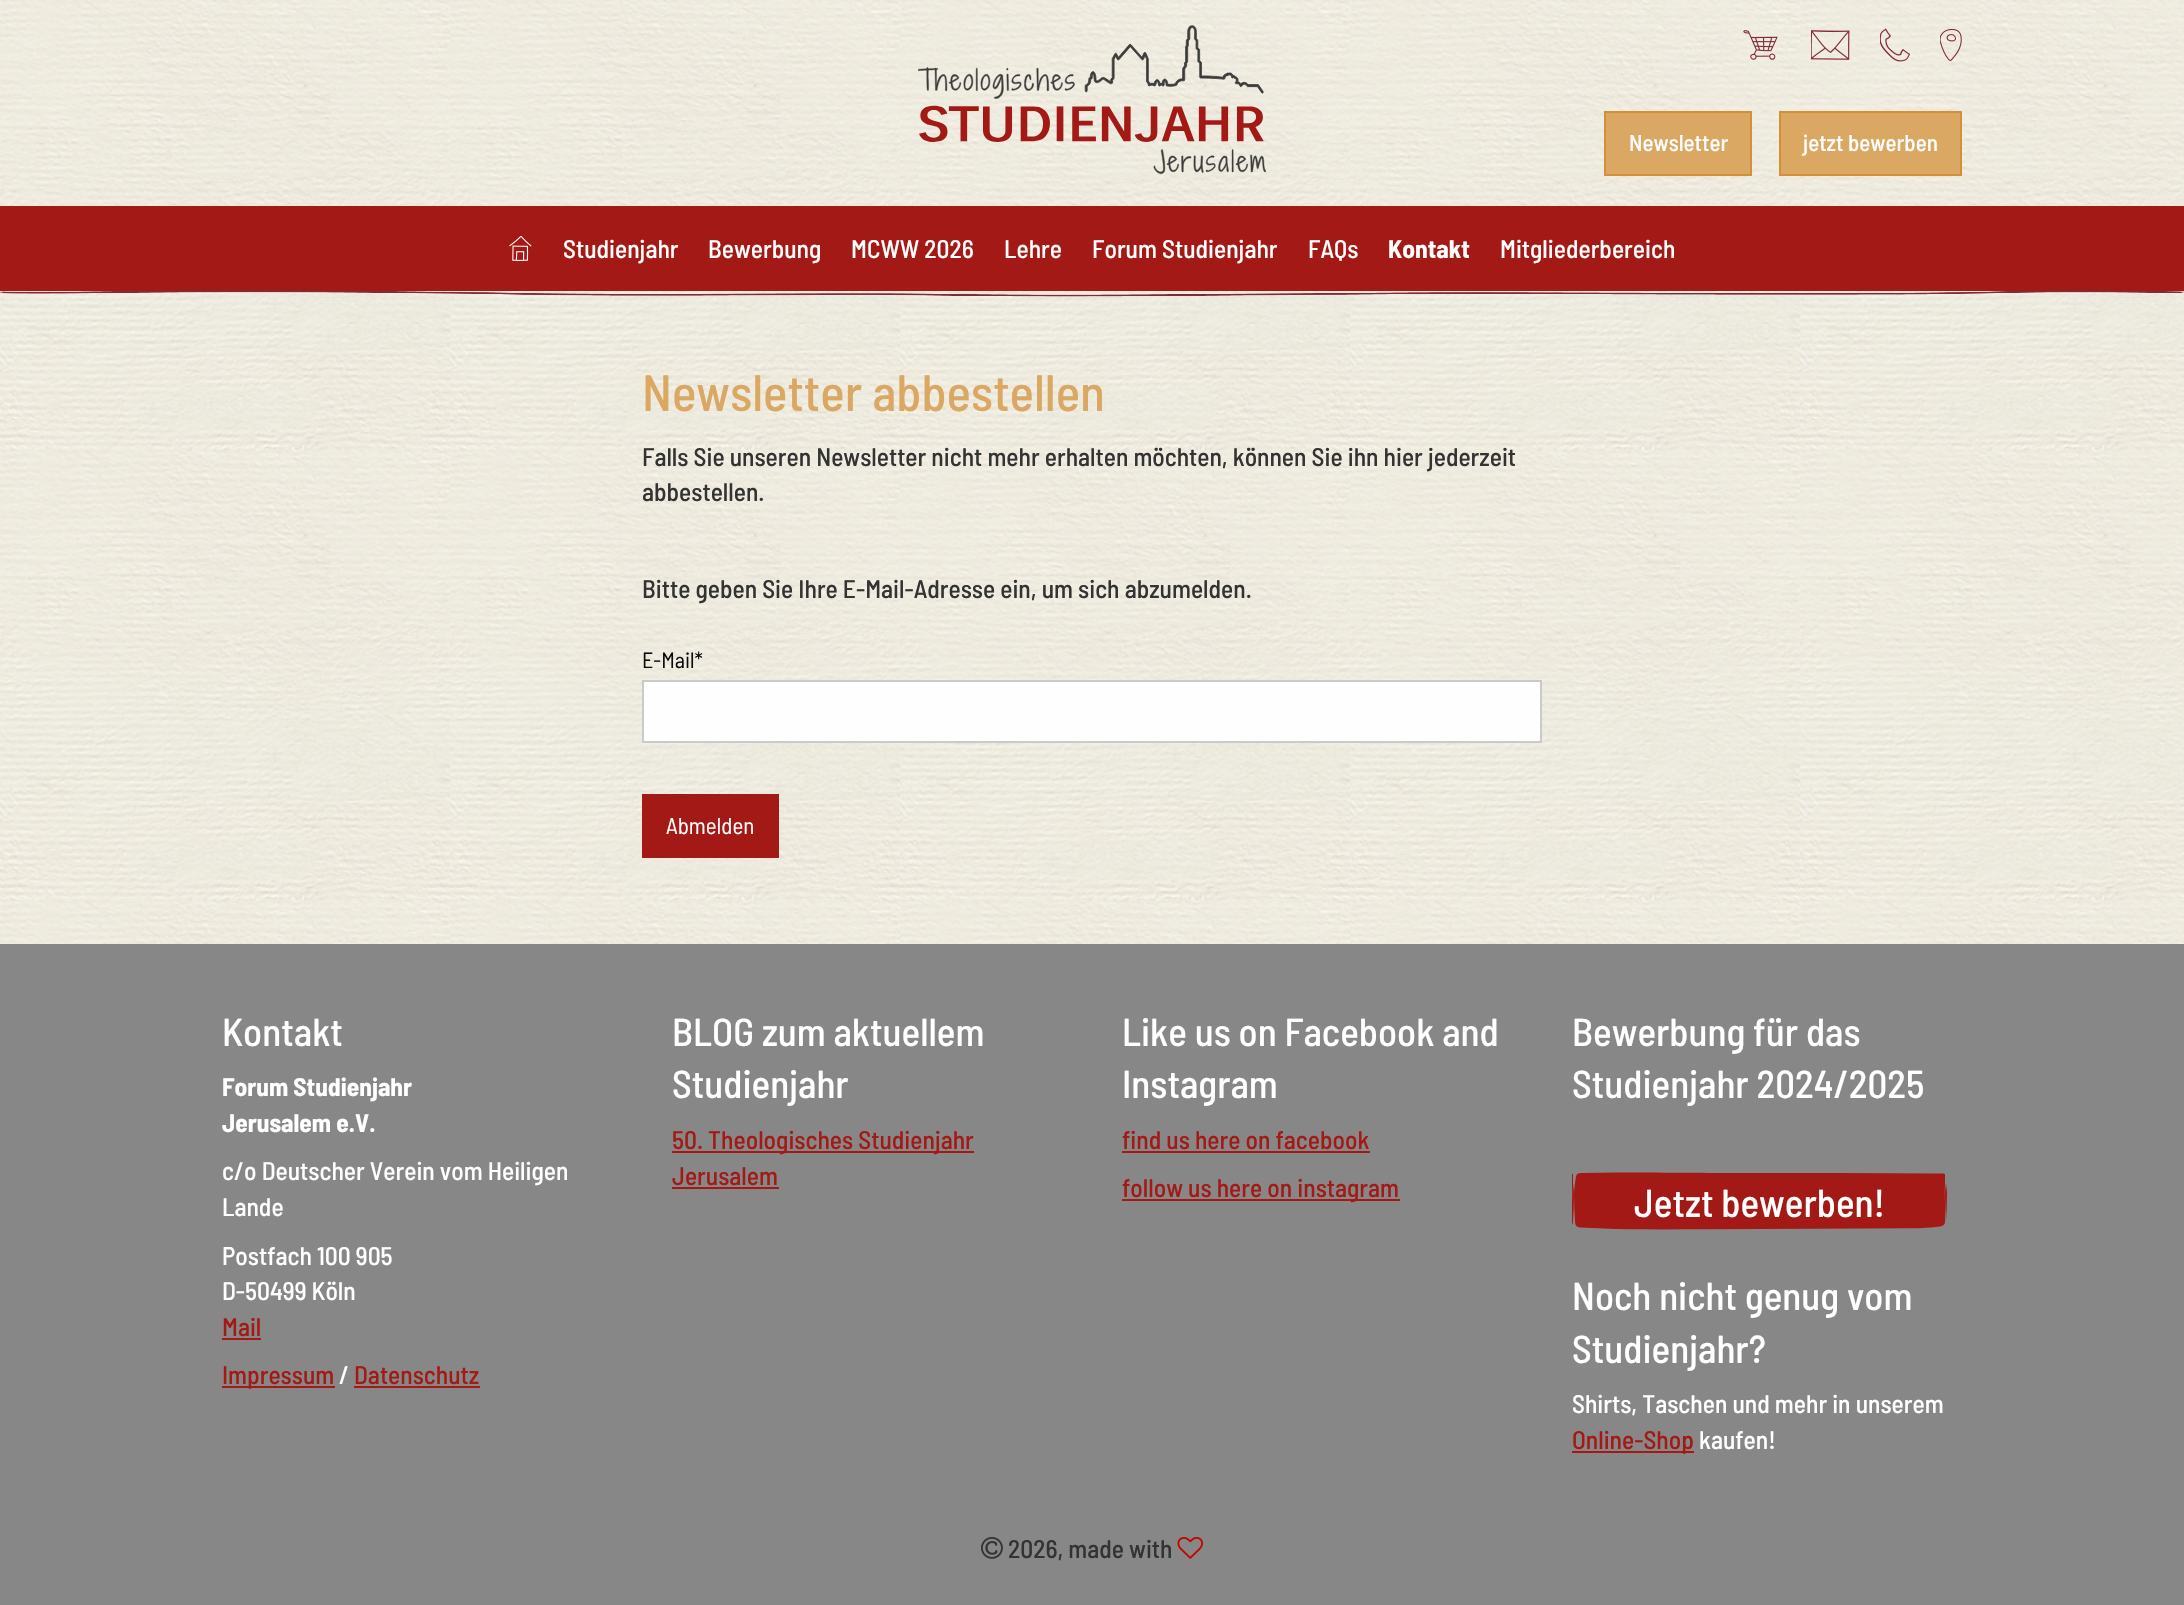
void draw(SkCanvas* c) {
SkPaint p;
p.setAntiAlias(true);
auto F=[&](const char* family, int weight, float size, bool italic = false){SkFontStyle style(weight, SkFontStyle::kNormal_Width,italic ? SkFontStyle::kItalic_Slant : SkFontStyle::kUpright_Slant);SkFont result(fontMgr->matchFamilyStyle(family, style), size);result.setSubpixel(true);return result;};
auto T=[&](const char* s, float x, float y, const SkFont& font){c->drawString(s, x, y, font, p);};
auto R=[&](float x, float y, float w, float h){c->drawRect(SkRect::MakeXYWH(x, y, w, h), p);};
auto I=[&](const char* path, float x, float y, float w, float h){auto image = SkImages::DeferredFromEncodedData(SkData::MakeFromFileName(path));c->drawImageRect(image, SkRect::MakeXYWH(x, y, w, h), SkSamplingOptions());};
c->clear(0xffffffff);
I("1.png",0,0,2184,944);
I("2.png",918,25,348,150);
I("3.png",1743,30,35,30);
I("4.png",1811,30,39,30);
I("5.png",1880,28,30,34);
I("6.png",1940,28,22,33);
p.setColor(0xffdaa862);
c->drawRect(SkRect::MakeXYWH(1605,112,146,63),p);
p.setStroke(true);
p.setStrokeWidth(2);
p.setColor(0xffd09139);
c->drawRect(SkRect::MakeXYWH(1605,112,146,63),p);
auto f1 = F("Barlow Semi Condensed",500,23);
p.setStroke(false);
p.setColor(0xffffffff);
T("Newsletter",1629,151,f1);
p.setColor(0xffdaa862);
c->drawRect(SkRect::MakeXYWH(1780,112,181,63),p);
p.setStroke(true);
p.setColor(0xffd09139);
c->drawRect(SkRect::MakeXYWH(1780,112,181,63),p);
p.setStroke(false);
p.setColor(0xffffffff);
T("jetzt bewerben",1803,151,f1);
p.setColor(0xffa31916);
R(0,206,2184,85);
I("7.png",509,236,23,25);
auto f2 = F("Barlow Semi Condensed",500,25.5);
p.setColor(0xffffffff);
T("Studienjahr",563,258,f2);
T("Bewerbung",708,258,f2);
T("MCWW 2026",851,258,f2);
T("Lehre",1004,258,f2);
T("Forum Studienjahr",1092,258,f2);
T("FAQs",1308,258,f2);
auto f3 = F("Barlow Semi Condensed",700,25.5);
T("Kontakt",1388,258,f3);
T("Mitgliederbereich",1500,258,f2);
I("8.png",0,290,2184,7);
auto f4 = F("Barlow Semi Condensed",500,51);
p.setColor(0xffdaa862);
T("Newsletter abbestellen",642,411,f4);
p.setColor(0xff333333);
T("Falls Sie unseren Newsletter nicht mehr erhalten möchten, können Sie ihn hier jederzeit",642,466,f2);
T("abbestellen.",642,501,f2);
T("Bitte geben Sie Ihre E-Mail-Adresse ein, um sich abzumelden.",642,598,f2);
auto f5 = F("Barlow Semi Condensed",400,22);
p.setColor(0xff0a0a0a);
T("E-Mail*",642,668,f5);
p.setColor(0xfffefefe);
c->drawRect(SkRect::MakeXYWH(643,681,898,61),p);
p.setStroke(true);
p.setColor(0xffcacaca);
c->drawRect(SkRect::MakeXYWH(643,681,898,61),p);
p.setStroke(false);
p.setColor(0xffa31916);
R(642,794,137,64);
auto f6 = F("Barlow Semi Condensed",400,23);
p.setColor(0xffffffff);
T("Abmelden",666,834,f6);
p.setColor(0xff878787);
R(0,944,2184,661);
auto f7 = F("Barlow Semi Condensed",500,39);
p.setColor(0xffffffff);
T("Kontakt",222,1046,f7);
T("Forum Studienjahr",222,1096,f3);
T("Jerusalem e.V.",222,1132,f3);
T("c/o Deutscher Verein vom Heiligen",222,1180,f2);
T("Lande",222,1216,f2);
T("Postfach 100 905",222,1265,f2);
T("D-50499 Köln",222,1300,f2);
p.setColor(0xffa31916);
T("Mail",222,1336,f2);
R(222,1338,39,2);
R(222,1386,113,2);
T("Impressum",222,1384,f2);
p.setColor(0xffffffff);
T("/",339,1384,f2);
p.setColor(0xffa31916);
T("Datenschutz",354,1384,f2);
R(354,1386,126,2);
p.setColor(0xffffffff);
T("BLOG zum aktuellem",672,1046,f7);
T("Studienjahr",672,1098,f7);
p.setColor(0xffa31916);
R(672,1151,302,2);
T("50. Theologisches Studienjahr",672,1149,f2);
T("Jerusalem",672,1185,f2);
R(672,1187,107,2);
p.setColor(0xffffffff);
T("Like us on Facebook and",1122,1046,f7);
T("Instagram",1122,1098,f7);
p.setColor(0xffa31916);
T("find us here on facebook",1122,1149,f2);
R(1122,1151,248,2);
R(1122,1199,278,2);
T("follow us here on instagram",1122,1197,f2);
p.setColor(0xffffffff);
T("Bewerbung für das",1572,1046,f7);
T("Studienjahr 2024/2025",1572,1098,f7);
I("9.png",1572,1172,375,58);
T("Jetzt bewerben!",1634,1217,f7);
T("Noch nicht genug vom",1572,1310,f7);
T("Studienjahr?",1572,1363,f7);
T("Shirts, Taschen und mehr in unserem",1572,1413,f2);
p.setColor(0xffa31916);
R(1572,1451,122,2);
T("Online-Shop",1572,1449,f2);
p.setColor(0xffffffff);
T("kaufen!",1699,1449,f2);
I("10.png",981,1537,22,22);
p.setColor(0xff333333);
T("2026, made with",1008,1558,f2);
I("11.png",1177,1537,26,22);
}
